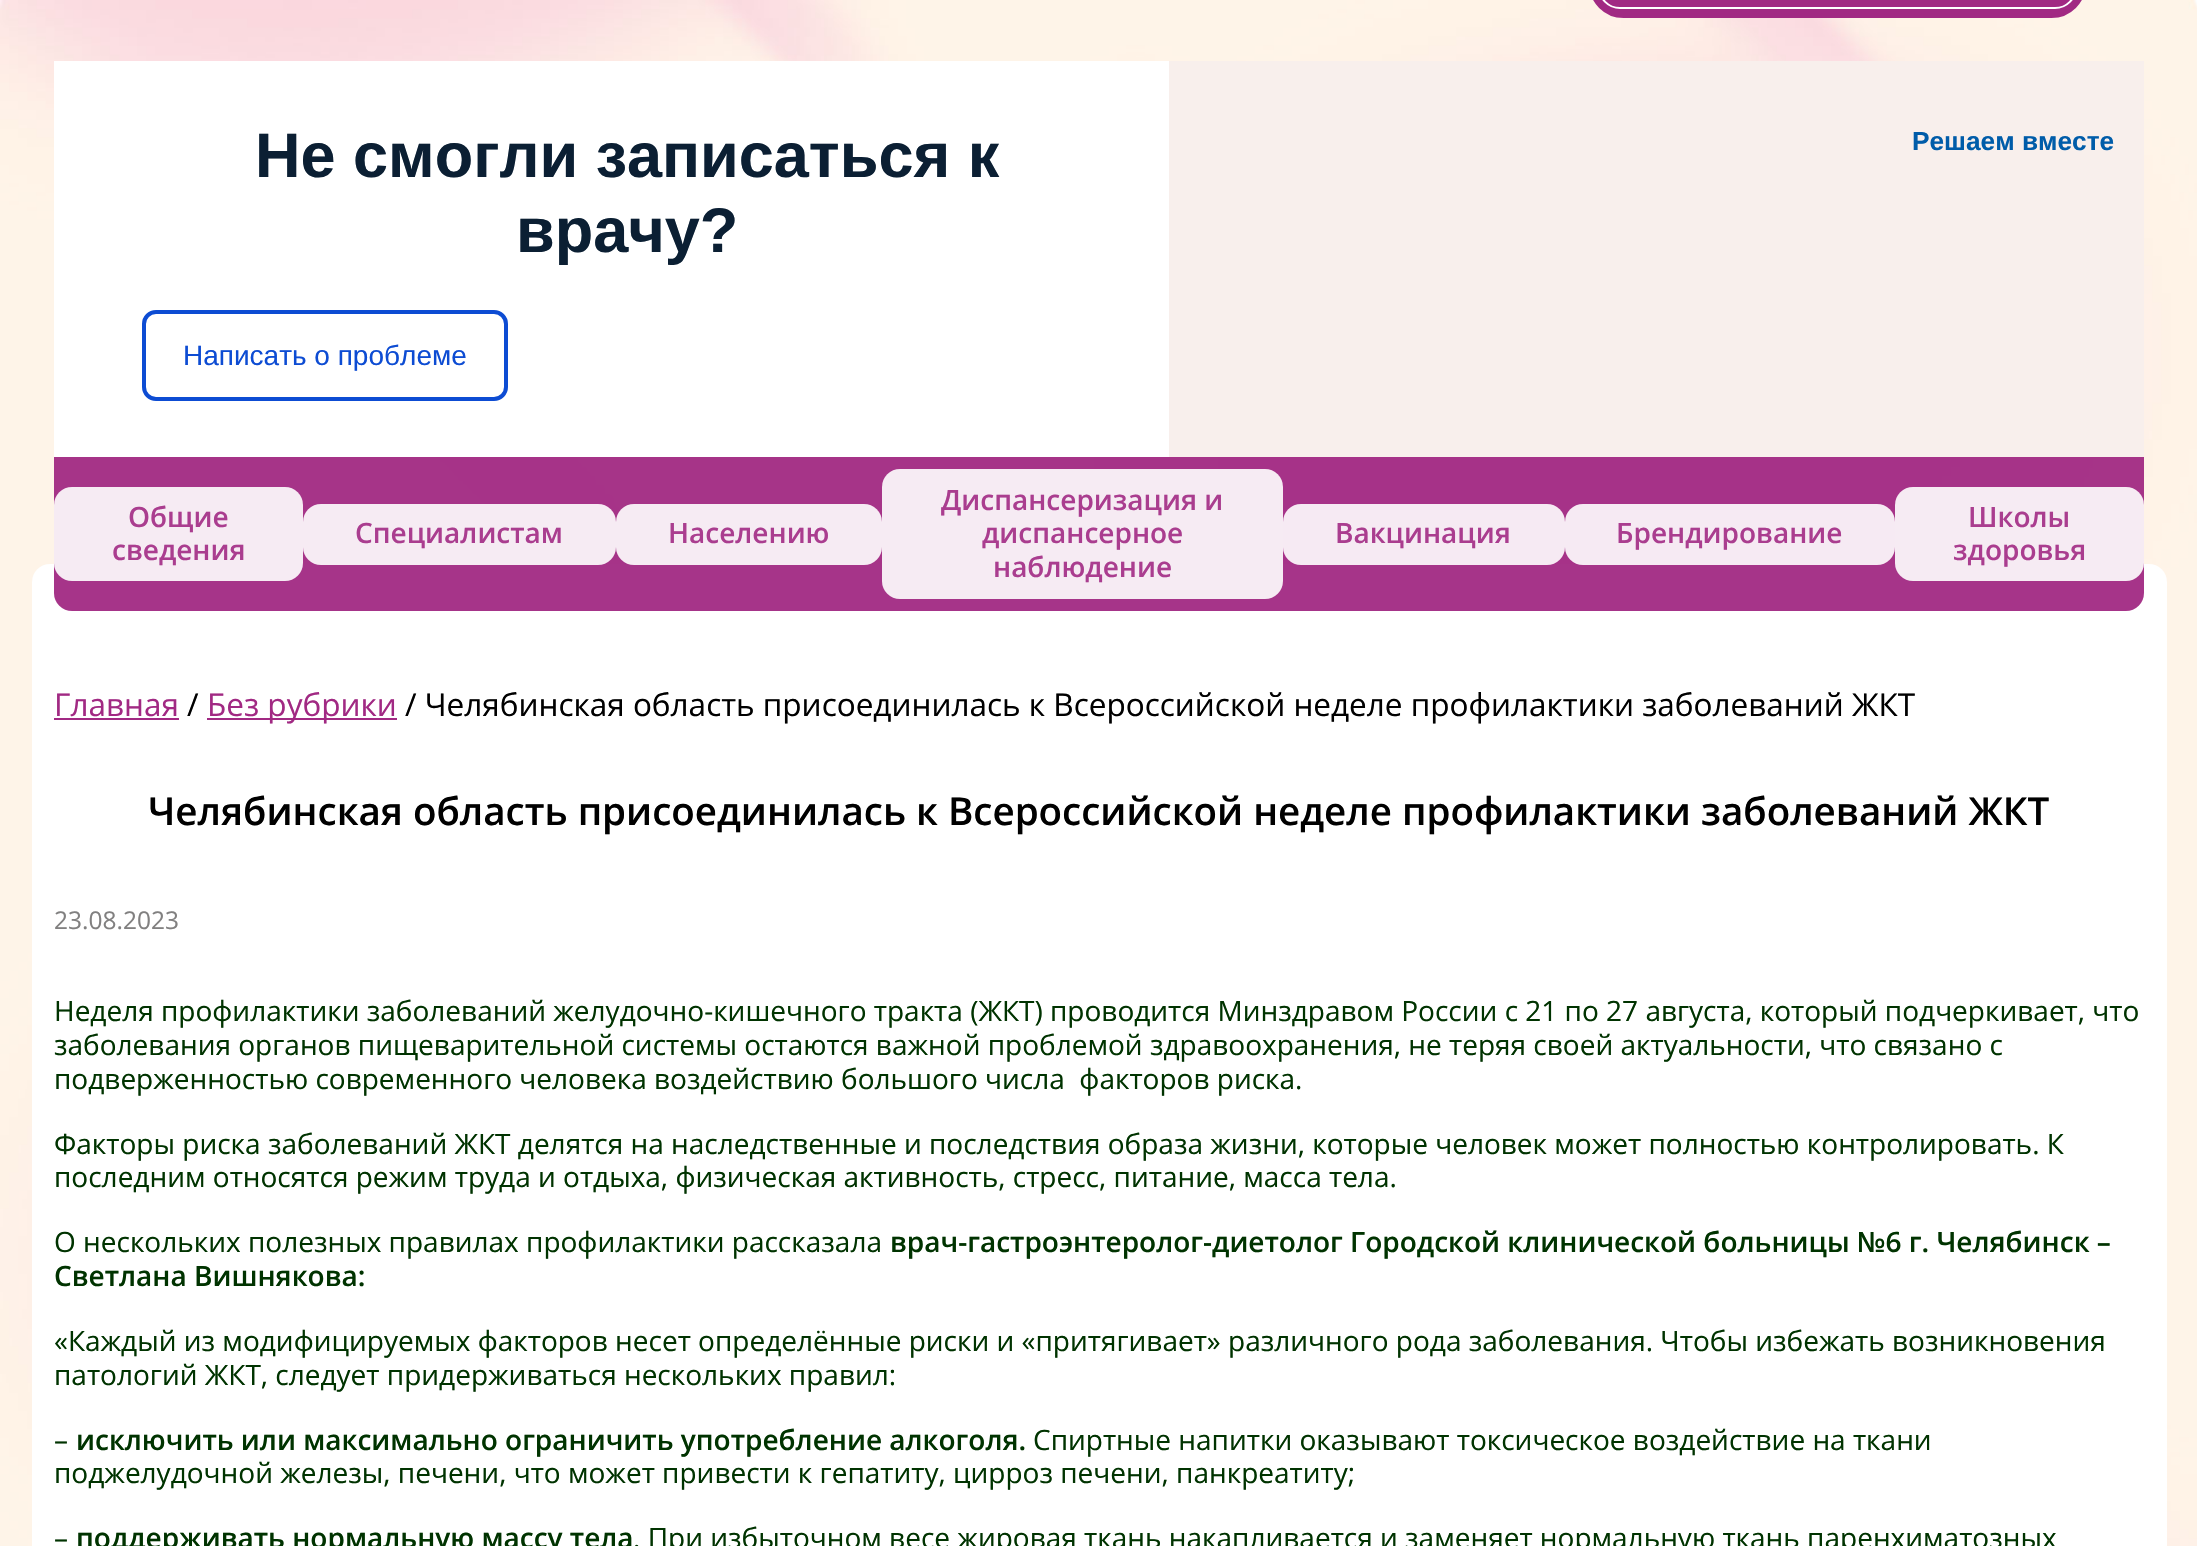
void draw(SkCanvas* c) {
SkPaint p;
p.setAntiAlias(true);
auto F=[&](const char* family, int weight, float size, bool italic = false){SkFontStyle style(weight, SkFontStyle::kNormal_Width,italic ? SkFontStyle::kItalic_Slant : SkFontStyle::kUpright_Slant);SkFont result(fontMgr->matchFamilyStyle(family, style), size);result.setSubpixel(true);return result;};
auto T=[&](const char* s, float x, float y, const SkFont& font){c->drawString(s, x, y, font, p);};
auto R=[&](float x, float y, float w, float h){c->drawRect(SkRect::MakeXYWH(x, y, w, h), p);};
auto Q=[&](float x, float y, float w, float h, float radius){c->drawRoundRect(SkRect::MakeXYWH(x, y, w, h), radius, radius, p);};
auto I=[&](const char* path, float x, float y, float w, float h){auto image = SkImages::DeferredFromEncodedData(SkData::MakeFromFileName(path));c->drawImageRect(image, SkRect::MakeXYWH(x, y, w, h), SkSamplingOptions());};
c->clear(0xffffffff);
I("1.png",0,0,2197,1546);
p.setColor(0xffa12983);
c->drawRoundRect(SkRect::MakeXYWH(1593.5,-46.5,488,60),37,37,p);
p.setStroke(true);
p.setStrokeWidth(9);
c->drawRoundRect(SkRect::MakeXYWH(1593.5,-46.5,488,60),37,37,p);
p.setStrokeWidth(2);
p.setColor(0xffffffff);
c->drawRoundRect(SkRect::MakeXYWH(1599,-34,477,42),31.5,31.5,p);
p.setStroke(false);
Q(32,564,2135,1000,18);
p.setColor(0xf2a12983);
Q(54,61,2090,550,18);
p.setColor(0xffffffff);
R(54,61,1115,396);
auto f1 = F("Liberation Sans",700,63);
p.setColor(0xff0b1f33);
T("Не смогли записаться к",255,177,f1);
T("врачу?",516,252,f1);
p.setStroke(true);
p.setStrokeWidth(4);
p.setColor(0xff0d4cd3);
c->drawRoundRect(SkRect::MakeXYWH(144,312,362,87),12,12,p);
auto f2 = F("Liberation Sans",400,28);
p.setStroke(false);
T("Написать о проблеме",183,365,f2);
p.setColor(0xfff8efec);
R(1169,61,975,396);
auto f3 = F("Liberation Sans",700,26.25);
p.setColor(0xff005ca9);
T("Решаем вместе",1912,150,f3);
p.setColor(0xfff6ebf3);
Q(54,487,249,94,18);
auto f4 = F("Open Sans",600,28);
p.setColor(0xffaa3d8f);
T("Общие",128,527,f4);
T("сведения",112,560,f4);
p.setColor(0xfff6ebf3);
Q(303,504,313,61,18);
p.setColor(0xffaa3d8f);
T("Специалистам",355,543,f4);
p.setColor(0xfff6ebf3);
Q(616,504,266,61,18);
p.setColor(0xffaa3d8f);
T("Населению",668,543,f4);
p.setColor(0xfff6ebf3);
Q(882,469,401,130,18);
p.setColor(0xffaa3d8f);
T("Диспансеризация и",941,510,f4);
T("диспансерное",982,543,f4);
T("наблюдение",993,577,f4);
p.setColor(0xfff6eaf3);
Q(1283,504,282,61,18);
p.setColor(0xffaa3d8f);
T("Вакцинация",1335,543,f4);
p.setColor(0xfff6eaf3);
Q(1565,504,330,61,18);
p.setColor(0xffaa3d8f);
T("Брендирование",1616,543,f4);
p.setColor(0xfff6ebf3);
Q(1895,487,249,94,18);
p.setColor(0xffaa3d8f);
T("Школы",1968,527,f4);
T("здоровья",1953,560,f4);
auto f5 = F("Open Sans",400,31.5);
p.setColor(0xffa12983);
T("Главная",54,716,f5);
R(54,718,125,2);
p.setColor(0xff000000);
T("/",187,716,f5);
p.setColor(0xffa12983);
R(207,718,190,2);
T("Без рубрики",207,716,f5);
p.setColor(0xff000000);
T("/ Челябинская область присоединилась к Всероссийской неделе профилактики заболеваний ЖКТ",405,716,f5);
auto f6 = F("Open Sans",600,38.5);
T("Челябинская область присоединилась к Всероссийской неделе профилактики заболеваний ЖКТ",148,825,f6);
auto f7 = F("Open Sans",400,24.5);
p.setColor(0xff818080);
T("23.08.2023",54,929,f7);
auto f8 = F("Open Sans",400,28);
p.setColor(0xff003300);
T("Неделя профилактики заболеваний желудочно-кишечного тракта (ЖКТ) проводится Минздравом России с 21 по 27 августа, который подчеркивает, что",54,1021,f8);
T("заболевания органов пищеварительной системы остаются важной проблемой здравоохранения, не теряя своей актуальности, что связано с",54,1055,f8);
T("подверженностью современного человека воздействию большого числа  факторов риска.",54,1089,f8);
T("Факторы риска заболеваний ЖКТ делятся на наследственные и последствия образа жизни, которые человек может полностью контролировать. К",54,1154,f8);
T("последним относятся режим труда и отдыха, физическая активность, стресс, питание, масса тела.",54,1187,f8);
T("О нескольких полезных правилах профилактики рассказала",54,1252,f8);
T("врач-гастроэнтеролог-диетолог Городской клинической больницы №6 г. Челябинск –",890,1252,f4);
T("Светлана Вишнякова:",54,1286,f4);
T("«Каждый из модифицируемых факторов несет определённые риски и «притягивает» различного рода заболевания. Чтобы избежать возникновения",54,1351,f8);
T("патологий ЖКТ, следует придерживаться нескольких правил:",54,1385,f8);
T("–",54,1450,f8);
T("исключить или максимально ограничить употребление алкоголя.",76,1450,f4);
T("Спиртные напитки оказывают токсическое воздействие на ткани",1033,1450,f8);
T("поджелудочной железы, печени, что может привести к гепатиту, цирроз печени, панкреатиту;",54,1483,f8);
T("–",54,1548,f8);
T("поддерживать нормальную массу тела",76,1548,f4);
T(". При избыточном весе жировая ткань накапливается и заменяет нормальную ткань паренхиматозных",633,1548,f8);
}
